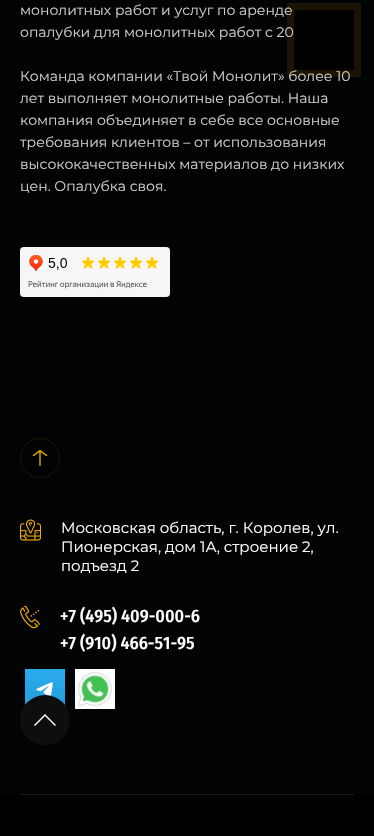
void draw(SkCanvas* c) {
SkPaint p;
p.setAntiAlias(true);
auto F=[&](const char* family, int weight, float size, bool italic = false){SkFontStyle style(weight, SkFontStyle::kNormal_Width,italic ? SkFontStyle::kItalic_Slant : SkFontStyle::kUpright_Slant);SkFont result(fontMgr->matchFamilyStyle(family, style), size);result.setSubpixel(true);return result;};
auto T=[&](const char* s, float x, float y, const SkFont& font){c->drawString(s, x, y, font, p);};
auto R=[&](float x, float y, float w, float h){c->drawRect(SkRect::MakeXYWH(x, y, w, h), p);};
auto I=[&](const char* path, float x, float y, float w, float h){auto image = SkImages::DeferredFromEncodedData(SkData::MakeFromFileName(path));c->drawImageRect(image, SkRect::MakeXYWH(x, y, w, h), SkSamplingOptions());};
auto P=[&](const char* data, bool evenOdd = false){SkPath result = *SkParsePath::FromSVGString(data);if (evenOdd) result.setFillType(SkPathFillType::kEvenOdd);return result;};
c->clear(0xff020304);
auto f1 = F("Montserrat",400,14);
p.setColor(0xffcccdcd);
T("монолитных работ и услуг по аренде",20,15,f1);
T("опалубки для монолитных работ с 20",20,37,f1);
T("Команда компании «Твой Монолит» более 10",20,81,f1);
p.setStroke(true);
p.setStrokeWidth(7);
p.setColor(0x1af4aa01);
c->drawRect(SkRect::MakeXYWH(290.5,6.5,67,67),p);
p.setStroke(false);
p.setColor(0xff000000);
R(294,10,60,60);
p.setColor(0xffcccdcd);
T("лет выполняет монолитные работы. Наша",20,103,f1);
T("компания объединяет в себе все основные",20,125,f1);
T("требования клиентов – от использования",20,147,f1);
T("высококачественных материалов до низких",20,169,f1);
T("цен. Опалубка своя.",20,191,f1);
I("1.png",20,247,150,50);
p.setStroke(true);
p.setStrokeWidth(1);
p.setColor(0xff1a1404);
c->drawCircle(40,458,19.5,p);
I("2.png",32,450,16,16);
I("3.png",20,519,21,22);
auto f2 = F("Montserrat",400,15);
p.setStroke(false);
p.setColor(0xffffffff);
T("Московская область, г. Королев, ул.",61,533,f2);
T("Пионерская, дом 1А, строение 2,",61,552,f2);
T("подъезд 2",61,571,f2);
I("4.png",20,605,20,24);
auto f3 = F("Fira Sans Condensed",500,18);
T("+7 (495) 409-000-6",60,622,f3);
T("+7 (910) 466-51-95",60,649,f3);
I("5.png",25,669,40,36);
I("6.png",75,669,40,40);
p.setColor(0xff0e0e0f);
c->drawCircle(45,720,25,p);
p.setColor(0xffffffff);
c->drawPath(P("M34 725l1 1l10-10l10 10l1-1l-11-11z",true),p);
p.setColor(0xff000000);
R(0,794,374,42);
p.setColor(0xff1a1a1a);
R(20,794,334,1);
}
